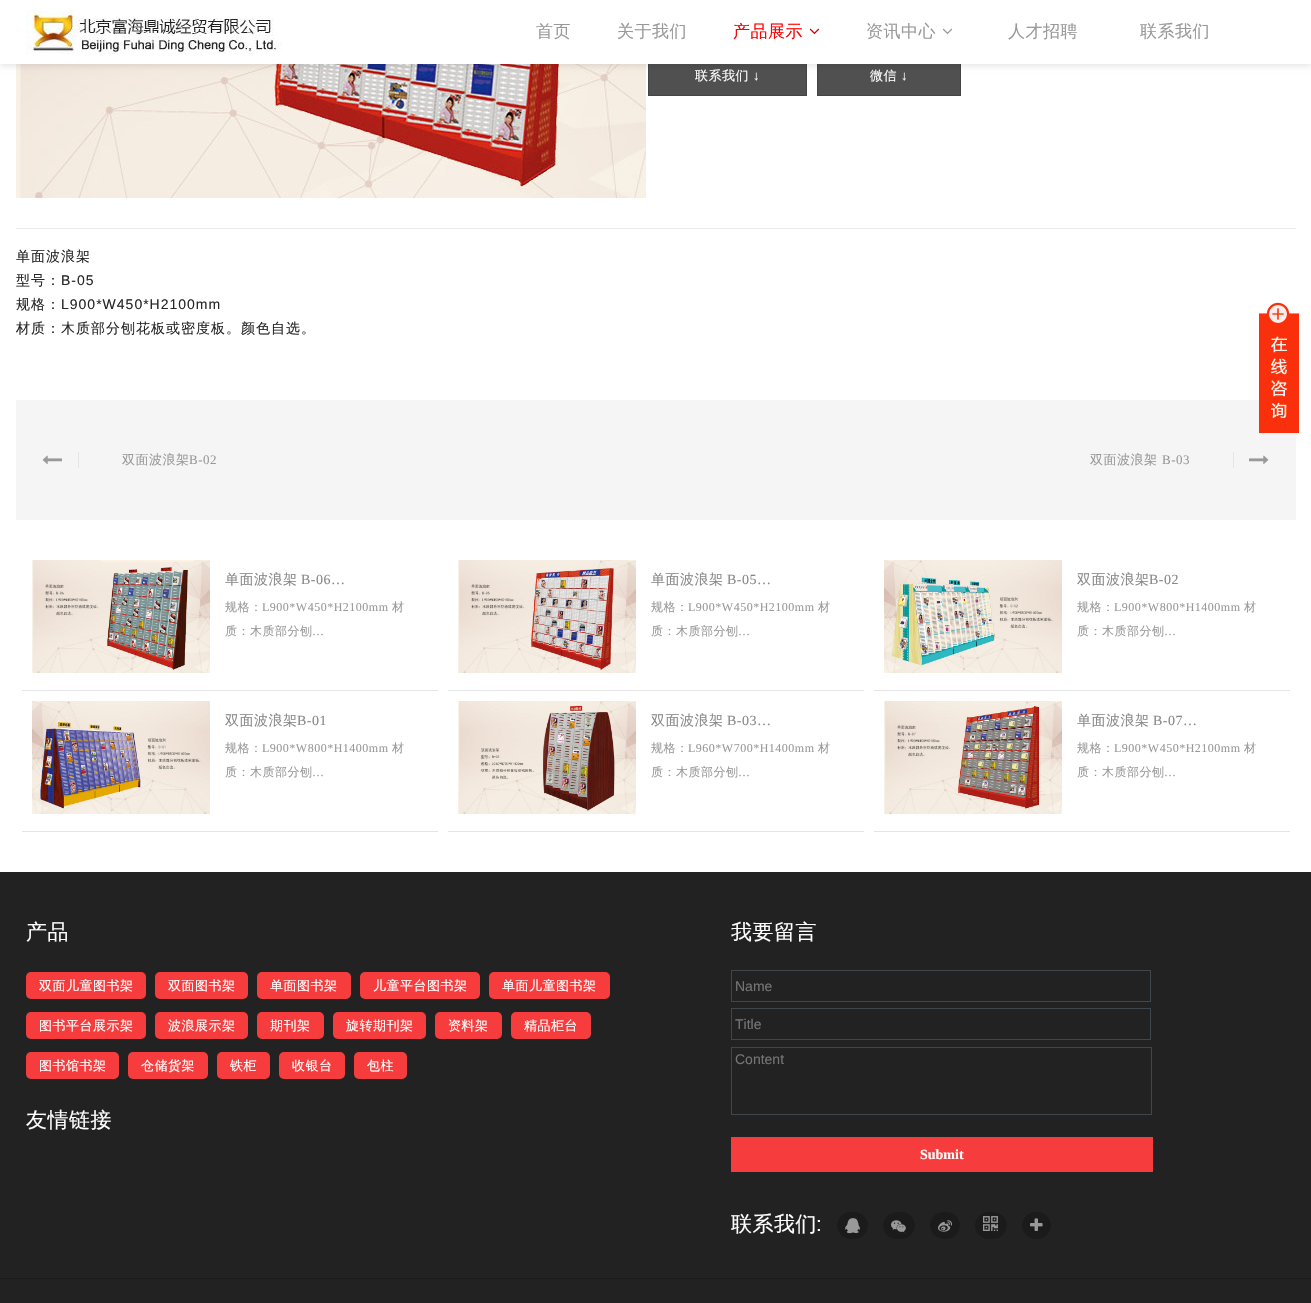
void draw(SkCanvas* c) {
SkPaint p;
p.setAntiAlias(true);
auto F=[&](const char* family, int weight, float size, bool italic = false){SkFontStyle style(weight, SkFontStyle::kNormal_Width,italic ? SkFontStyle::kItalic_Slant : SkFontStyle::kUpright_Slant);SkFont result(fontMgr->matchFamilyStyle(family, style), size);result.setSubpixel(true);return result;};
auto T=[&](const char* s, float x, float y, const SkFont& font){c->drawString(s, x, y, font, p);};
auto L=[&](const char* s, float x, float y, const SkFont& font, const SkPaint& ink, float letter, float word){std::vector<SkGlyphID> glyphs(font.countText(s, strlen(s), SkTextEncoding::kUTF8));std::vector<float> xs(glyphs.size());font.textToGlyphs(s, strlen(s), SkTextEncoding::kUTF8, glyphs);font.getXPos(glyphs, xs, x);float extra = 0;for (size_t i = 0; i < glyphs.size(); i++) {xs[i] += extra;extra += letter + word * (glyphs[i] == font.unicharToGlyph(' '));}c->drawTextBlob(SkTextBlob::MakeFromPosHGlyphs(glyphs, xs, y, font), 0, 0, ink);};
auto R=[&](float x, float y, float w, float h){c->drawRect(SkRect::MakeXYWH(x, y, w, h), p);};
auto Q=[&](float x, float y, float w, float h, float radius){c->drawRoundRect(SkRect::MakeXYWH(x, y, w, h), radius, radius, p);};
auto I=[&](const char* path, float x, float y, float w, float h){auto image = SkImages::DeferredFromEncodedData(SkData::MakeFromFileName(path));c->drawImageRect(image, SkRect::MakeXYWH(x, y, w, h), SkSamplingOptions());};
c->clear(0xffffffff);
I("4.png",16,64,630,134);
p.setColor(0xff505050);
R(649,64,157,31);
p.setStroke(true);
p.setStrokeWidth(1);
p.setColor(0xff444444);
c->drawRect(SkRect::MakeXYWH(648.5,55.5,158,40),p);
p.setStroke(false);
p.setColor(0xff505050);
R(818,64,142,31);
p.setStroke(true);
p.setColor(0xff444444);
c->drawRect(SkRect::MakeXYWH(817.5,55.5,143,40),p);
p.setStroke(false);
p.setColor(0x1a000000);
p.setMaskFilter(SkMaskFilter::MakeBlur(kNormal_SkBlurStyle, 3));
c->drawRect(SkRect::MakeXYWH(0,2,1311,64),p);
p.setMaskFilter(nullptr);
p.setColor(0xffffffff);
R(0,0,1311,64);
I("1.png",26,10,256,44);
auto f1 = F("WenQuanYi Zen Hei",500,17);
p.setColor(0xff999999);
L("首页",536,37,f1,p,.5,0);
L("关于我们",617,37,f1,p,.5,0);
p.setColor(0xffff0000);
L("产品展示",733,37,f1,p,.5,0);
I("2.png",809,28,11,7);
p.setColor(0xff999999);
L("资讯中心",866,37,f1,p,.5,0);
I("3.png",942,28,11,7);
L("人才招聘",1008,37,f1,p,.5,0);
L("联系我们",1140,37,f1,p,.5,0);
p.setColor(0xffe7eaec);
R(16,228,1280,1);
auto f2 = F("WenQuanYi Zen Hei",500,13);
p.setColor(0xffffffff);
L("联系我们",695,80,f2,p,.5,0);
auto f3 = F("Liberation Serif",400,13);
L("↓",753,80,f3,p,.5,0);
L("微信",870,80,f2,p,.5,0);
L("↓",901,80,f3,p,.5,0);
auto f4 = F("WenQuanYi Zen Hei",500,14);
p.setColor(0xff262626);
L("单面波浪架",16,261,f4,p,1,0);
L("型号：",16,285,f4,p,1,0);
auto f5 = F("Liberation Sans",400,14);
L("B-05",61,285,f5,p,1,0);
L("规格：",16,309,f4,p,1,0);
L("L900*W450*H2100mm",61,309,f5,p,1,0);
L("材质：木质部分刨花板或密度板。颜色自选。",16,333,f4,p,1,0);
p.setColor(0xfff5f5f5);
R(16,400,1280,120);
p.setColor(0xffe5e5e5);
R(78,452,1,16);
I("5.png",42,455,20,9);
p.setColor(0xff999999);
L("双面波浪架",122,464,f2,p,.5,0);
L("B-02",189,464,f3,p,.5,0);
L("双面波浪架",1090,464,f2,p,.5,0);
L("B-03",1162,464,f3,p,.5,0);
p.setColor(0xffe5e5e5);
R(1233,452,1,16);
I("6.png",1249,455,20,9);
R(22,690,416,1);
I("7.png",32,560,178,113);
p.setColor(0xff888888);
L("单面波浪架",225,584,f4,p,.5,0);
auto f6 = F("Liberation Serif",400,14);
L("B-06…",301,584,f6,p,.5,0);
auto f7 = F("WenQuanYi Zen Hei",500,12);
p.setColor(0xff999999);
L("规格：",225,611,f7,p,.5,0);
auto f8 = F("Liberation Serif",400,12);
L("L900*W450*H2100mm",262,611,f8,p,.5,0);
L("材",392,611,f7,p,.5,0);
L("质：木质部分刨",225,635,f7,p,.5,0);
L("…",312,635,f8,p,.5,0);
p.setColor(0xffe5e5e5);
R(448,690,416,1);
I("8.png",458,560,178,113);
p.setColor(0xff888888);
L("单面波浪架",651,584,f4,p,.5,0);
L("B-05…",727,584,f6,p,.5,0);
p.setColor(0xff999999);
L("规格：",651,611,f7,p,.5,0);
L("L900*W450*H2100mm",688,611,f8,p,.5,0);
L("材",818,611,f7,p,.5,0);
L("质：木质部分刨",651,635,f7,p,.5,0);
L("…",738,635,f8,p,.5,0);
p.setColor(0xffe5e5e5);
R(874,690,416,1);
I("9.png",884,560,178,113);
p.setColor(0xff888888);
L("双面波浪架",1077,584,f4,p,.5,0);
L("B-02",1149,584,f6,p,.5,0);
p.setColor(0xff999999);
L("规格：",1077,611,f7,p,.5,0);
L("L900*W800*H1400mm",1114,611,f8,p,.5,0);
L("材",1244,611,f7,p,.5,0);
L("质：木质部分刨",1077,635,f7,p,.5,0);
L("…",1164,635,f8,p,.5,0);
p.setColor(0xffe5e5e5);
R(22,831,416,1);
I("10.png",32,701,178,113);
p.setColor(0xff888888);
L("双面波浪架",225,725,f4,p,.5,0);
L("B-01",297,725,f6,p,.5,0);
p.setColor(0xff999999);
L("规格：",225,752,f7,p,.5,0);
L("L900*W800*H1400mm",262,752,f8,p,.5,0);
L("材",392,752,f7,p,.5,0);
L("质：木质部分刨",225,776,f7,p,.5,0);
L("…",312,776,f8,p,.5,0);
p.setColor(0xffe5e5e5);
R(448,831,416,1);
I("11.png",458,701,178,113);
p.setColor(0xff888888);
L("双面波浪架",651,725,f4,p,.5,0);
L("B-03…",727,725,f6,p,.5,0);
p.setColor(0xff999999);
L("规格：",651,752,f7,p,.5,0);
L("L960*W700*H1400mm",688,752,f8,p,.5,0);
L("材",818,752,f7,p,.5,0);
L("质：木质部分刨",651,776,f7,p,.5,0);
L("…",738,776,f8,p,.5,0);
p.setColor(0xffe5e5e5);
R(874,831,416,1);
I("12.png",884,701,178,113);
p.setColor(0xff888888);
L("单面波浪架",1077,725,f4,p,.5,0);
L("B-07…",1153,725,f6,p,.5,0);
p.setColor(0xff999999);
L("规格：",1077,752,f7,p,.5,0);
L("L900*W450*H2100mm",1114,752,f8,p,.5,0);
L("材",1244,752,f7,p,.5,0);
L("质：木质部分刨",1077,776,f7,p,.5,0);
L("…",1164,776,f8,p,.5,0);
I("13.png",1259,302,40,131);
p.setColor(0xff222222);
R(0,872,1311,406);
auto f9 = F("WenQuanYi Zen Hei",500,21);
p.setColor(0xffffffff);
L("产品",26,939,f9,p,.5,0);
p.setColor(0xfff63c3c);
Q(26,972,120,27,5);
p.setColor(0xffffffff);
L("双面儿童图书架",39,990,f2,p,.5,0);
p.setColor(0xfff63c3c);
Q(155,972,93,27,5);
p.setColor(0xffffffff);
L("双面图书架",168,990,f2,p,.5,0);
p.setColor(0xfff63c3c);
Q(257,972,94,27,5);
p.setColor(0xffffffff);
L("单面图书架",270,990,f2,p,.5,0);
p.setColor(0xfff63c3c);
Q(360,972,120,27,5);
p.setColor(0xffffffff);
L("儿童平台图书架",373,990,f2,p,.5,0);
p.setColor(0xfff63c3c);
Q(489,972,121,27,5);
p.setColor(0xffffffff);
L("单面儿童图书架",502,990,f2,p,.5,0);
p.setColor(0xfff63c3c);
Q(26,1012,120,27,5);
p.setColor(0xffffffff);
L("图书平台展示架",39,1030,f2,p,.5,0);
p.setColor(0xfff63c3c);
Q(155,1012,93,27,5);
p.setColor(0xffffffff);
L("波浪展示架",168,1030,f2,p,.5,0);
p.setColor(0xfff63c3c);
Q(257,1012,67,27,5);
p.setColor(0xffffffff);
L("期刊架",270,1030,f2,p,.5,0);
p.setColor(0xfff63c3c);
Q(333,1012,93,27,5);
p.setColor(0xffffffff);
L("旋转期刊架",346,1030,f2,p,.5,0);
p.setColor(0xfff63c3c);
Q(435,1012,67,27,5);
p.setColor(0xffffffff);
L("资料架",448,1030,f2,p,.5,0);
p.setColor(0xfff63c3c);
Q(511,1012,80,27,5);
p.setColor(0xffffffff);
L("精品柜台",524,1030,f2,p,.5,0);
p.setColor(0xfff63c3c);
Q(26,1052,93,27,5);
p.setColor(0xffffffff);
L("图书馆书架",39,1070,f2,p,.5,0);
p.setColor(0xfff63c3c);
Q(128,1052,80,27,5);
p.setColor(0xffffffff);
L("仓储货架",141,1070,f2,p,.5,0);
p.setColor(0xfff63c3c);
Q(217,1052,53,27,5);
p.setColor(0xffffffff);
L("铁柜",230,1070,f2,p,.5,0);
p.setColor(0xfff63c3c);
Q(279,1052,66,27,5);
p.setColor(0xffffffff);
L("收银台",292,1070,f2,p,.5,0);
p.setColor(0xfff63c3c);
Q(354,1052,53,27,5);
p.setColor(0xffffffff);
L("包柱",367,1070,f2,p,.5,0);
L("友情链接",26,1127,f9,p,.5,0);
L("我要留言",731,939,f9,p,.5,0);
p.setStroke(true);
p.setColor(0xff3d474d);
c->drawRect(SkRect::MakeXYWH(731.5,970.5,419,31),p);
p.setStroke(false);
p.setColor(0xff757575);
T("Name",735,991,f5);
p.setStroke(true);
p.setColor(0xff3d474d);
c->drawRect(SkRect::MakeXYWH(731.5,1008.5,419,31),p);
p.setStroke(false);
p.setColor(0xff757575);
T("Title",735,1029,f5);
p.setStroke(true);
p.setColor(0xff3d474d);
c->drawRect(SkRect::MakeXYWH(731.5,1047.5,420,67),p);
p.setStroke(false);
p.setColor(0xff757575);
T("Content",735,1064,f5);
p.setColor(0xfff63c3c);
R(731,1137,422,35);
auto f10 = F("Liberation Serif",700,14);
p.setColor(0xffffffff);
T("Submit",920,1159,f10);
L("联系我们",731,1231,f9,p,.5,0);
auto f11 = F("Liberation Sans",400,21);
L(":",816,1231,f11,p,.5,0);
p.setColor(0xff1b1b1b);
Q(837,1212,31,27,13.5);
I("14.png",845,1218,15,16);
Q(883,1212,32,27,13.5);
I("15.png",891,1220,15,13);
Q(930,1212,30,27,13.5);
I("16.png",938,1220,14,12);
Q(975,1212,32,27,13.5);
I("17.png",983,1216,15,15);
Q(1022,1212,29,27,13.5);
I("18.png",1030,1218,13,13);
p.setColor(0xff222222);
R(0,1279,1311,24);
p.setColor(0xff1d1c1c);
R(0,1278,1311,1);
}
